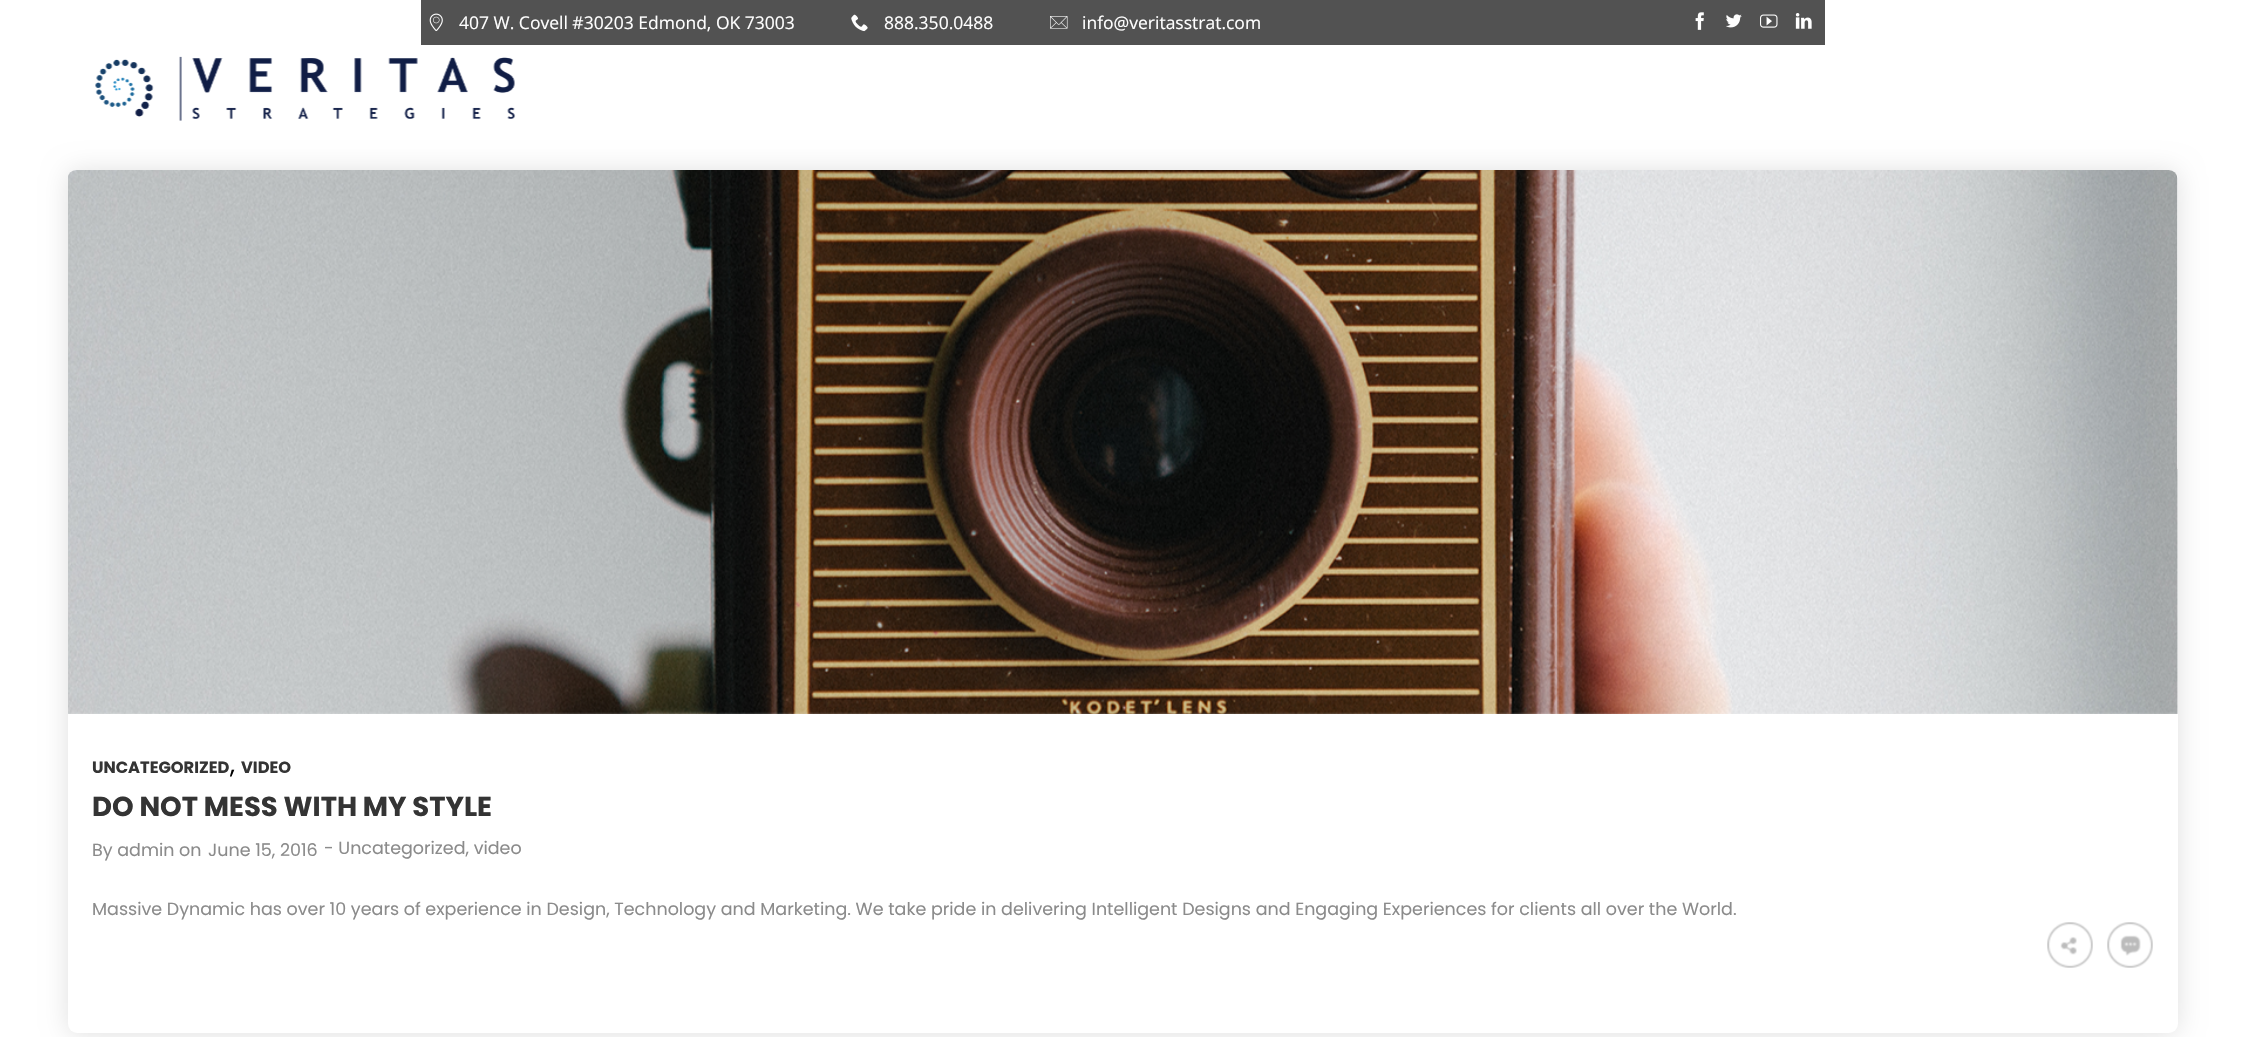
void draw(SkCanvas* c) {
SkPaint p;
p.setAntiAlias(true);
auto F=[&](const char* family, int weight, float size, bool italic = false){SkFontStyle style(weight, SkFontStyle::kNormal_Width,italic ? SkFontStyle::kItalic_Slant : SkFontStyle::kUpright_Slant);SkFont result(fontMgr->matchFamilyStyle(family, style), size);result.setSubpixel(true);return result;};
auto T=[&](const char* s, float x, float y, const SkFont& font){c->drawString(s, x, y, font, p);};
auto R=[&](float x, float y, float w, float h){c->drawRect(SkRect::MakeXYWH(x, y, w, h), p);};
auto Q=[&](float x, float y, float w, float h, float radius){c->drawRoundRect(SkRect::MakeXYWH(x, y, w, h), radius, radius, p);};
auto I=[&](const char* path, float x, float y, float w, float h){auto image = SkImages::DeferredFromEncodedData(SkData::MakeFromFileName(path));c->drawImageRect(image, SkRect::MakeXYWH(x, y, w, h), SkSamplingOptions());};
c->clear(0xffffffff);
p.setColor(0xff525252);
R(421,0,1404,45);
I("1.png",429,13,14,19);
auto f1 = F("Open Sans",400,17.5);
p.setColor(0xffffffff);
T("407 W. Covell #30203 Edmond, OK 73003",459,29,f1);
I("2.png",851,14,17,18);
T("888.350.0488",884,29,f1);
I("3.png",1050,16,18,13);
T("info@veritasstrat.com",1082,29,f1);
I("4.png",1695,12,9,18);
I("5.png",1726,14,16,14);
I("6.png",1760,14,18,14);
I("7.png",1795,13,17,16);
I("8.png",95,56,421,65);
p.setColor(0x1f000000);
p.setMaskFilter(SkMaskFilter::MakeBlur(kNormal_SkBlurStyle, 13));
c->drawRoundRect(SkRect::MakeXYWH(68,171,2110,863),9,9,p);
p.setMaskFilter(nullptr);
p.setColor(0xffffffff);
Q(68,170,2110,863,9);
I("9.png",68,170,2110,544);
auto f2 = F("Poppins",700,16.25);
p.setColor(0xff343434);
T("UNCATEGORIZED",92,773,f2);
auto f3 = F("Poppins",400,25);
p.setColor(0xff000000);
T(",",230,773,f3);
p.setColor(0xff343434);
T("VIDEO",241,773,f2);
auto f4 = F("Poppins",700,27.5);
T("DO NOT MESS WITH MY STYLE",92,816,f4);
auto f5 = F("Poppins",400,17.5);
p.setColor(0xff8b8b8b);
T("By admin on",92,856,f5);
T("June 15, 2016",208,856,f5);
T("- Uncategorized, video",324,854,f5);
T("Massive Dynamic has over 10 years of experience in Design, Technology and Marketing. We take pride in delivering Intelligent Designs and Engaging Experiences for clients all over the World.",92,915,f5);
I("10.png",2047,922,46,46);
I("11.png",2107,922,46,46);
}
